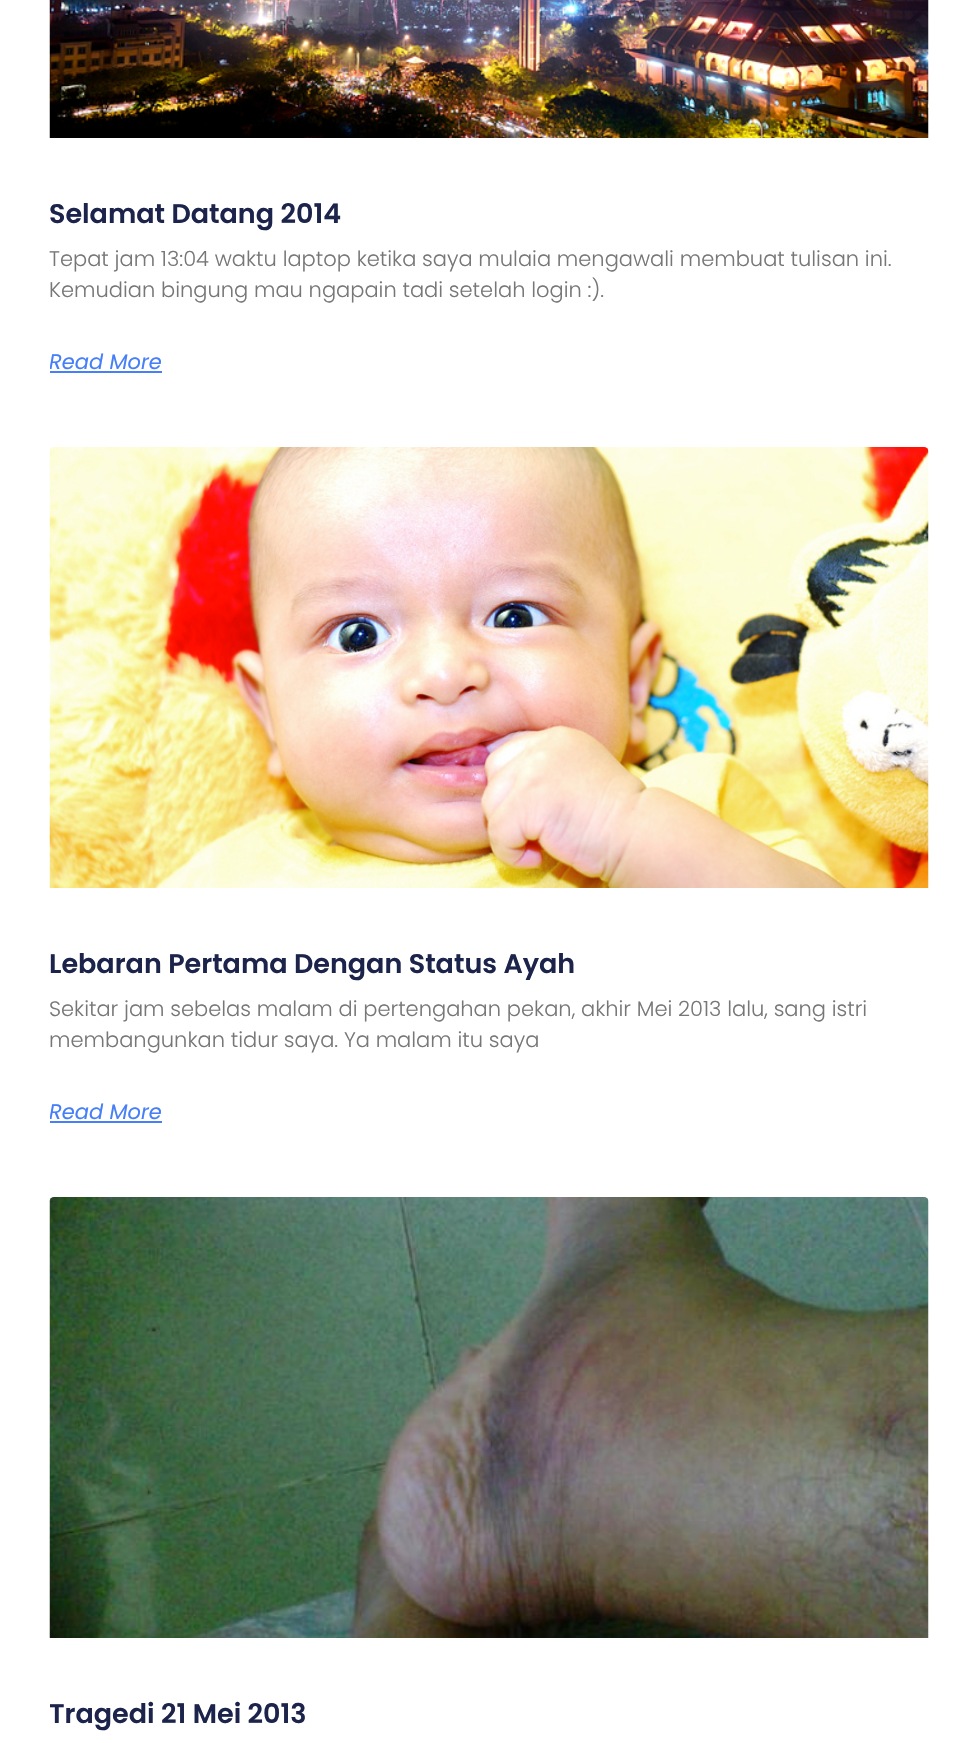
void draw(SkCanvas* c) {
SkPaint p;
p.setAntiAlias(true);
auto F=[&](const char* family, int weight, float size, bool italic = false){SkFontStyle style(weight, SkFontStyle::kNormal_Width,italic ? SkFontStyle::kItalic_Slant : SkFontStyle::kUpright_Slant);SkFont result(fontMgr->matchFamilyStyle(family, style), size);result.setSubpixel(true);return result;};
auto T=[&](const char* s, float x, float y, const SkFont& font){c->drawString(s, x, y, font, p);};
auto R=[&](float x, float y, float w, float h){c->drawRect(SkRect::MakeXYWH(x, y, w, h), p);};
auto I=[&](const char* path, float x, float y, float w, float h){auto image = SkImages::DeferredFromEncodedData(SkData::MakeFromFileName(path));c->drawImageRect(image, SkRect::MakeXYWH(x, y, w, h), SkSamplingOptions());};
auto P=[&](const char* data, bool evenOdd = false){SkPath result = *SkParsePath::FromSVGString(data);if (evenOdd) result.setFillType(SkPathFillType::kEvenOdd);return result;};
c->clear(0xffffffff);
I("1.png",49,0,880,138);
auto f1 = F("Poppins",600,27);
p.setColor(0xff1c244b);
T("Selamat Datang 2014",49,223,f1);
auto f2 = F("Poppins",300,21);
p.setColor(0xff777777);
T("Tepat jam 13:04 waktu laptop ketika saya mulaia mengawali membuat tulisan ini.",49,266,f2);
T("Kemudian bingung mau ngapain tadi setelah login :).",49,297,f2);
c->save();
c->clipPath(P("M55-303h869c3 0 5 2 5 5v695c0 3-2 5-5 5h-869c-3 0-5-2-5-5v-695c0-3 2-5 5-5z"),true);
auto f3 = F("Poppins",400,21,true);
p.setColor(0xff467ff7);
T("Read More",49,369,f3);
c->restore();
R(50,371,112,2);
I("2.png",49,447,880,441);
p.setColor(0xff1c244b);
T("Lebaran Pertama Dengan Status Ayah",49,973,f1);
p.setColor(0xff777777);
T("Sekitar jam sebelas malam di pertengahan pekan, akhir Mei 2013 lalu, sang istri",49,1016,f2);
T("membangunkan tidur saya. Ya malam itu saya",49,1047,f2);
c->save();
c->clipPath(P("M55 447h869c3 0 5 2 5 5v695c0 3-2 5-5 5h-869c-3 0-5-2-5-5v-695c0-3 2-5 5-5z"),true);
p.setColor(0xff467ff7);
T("Read More",49,1119,f3);
c->restore();
R(50,1121,112,2);
I("3.png",49,1197,880,441);
c->save();
c->clipPath(P("M55 1197h869c3 0 5 2 5 5v695c0 3-2 5-5 5h-869c-3 0-5-2-5-5v-695c0-3 2-5 5-5z"),true);
p.setColor(0xff1c244b);
T("Tragedi 21 Mei 2013",49,1723,f1);
c->restore();
}
